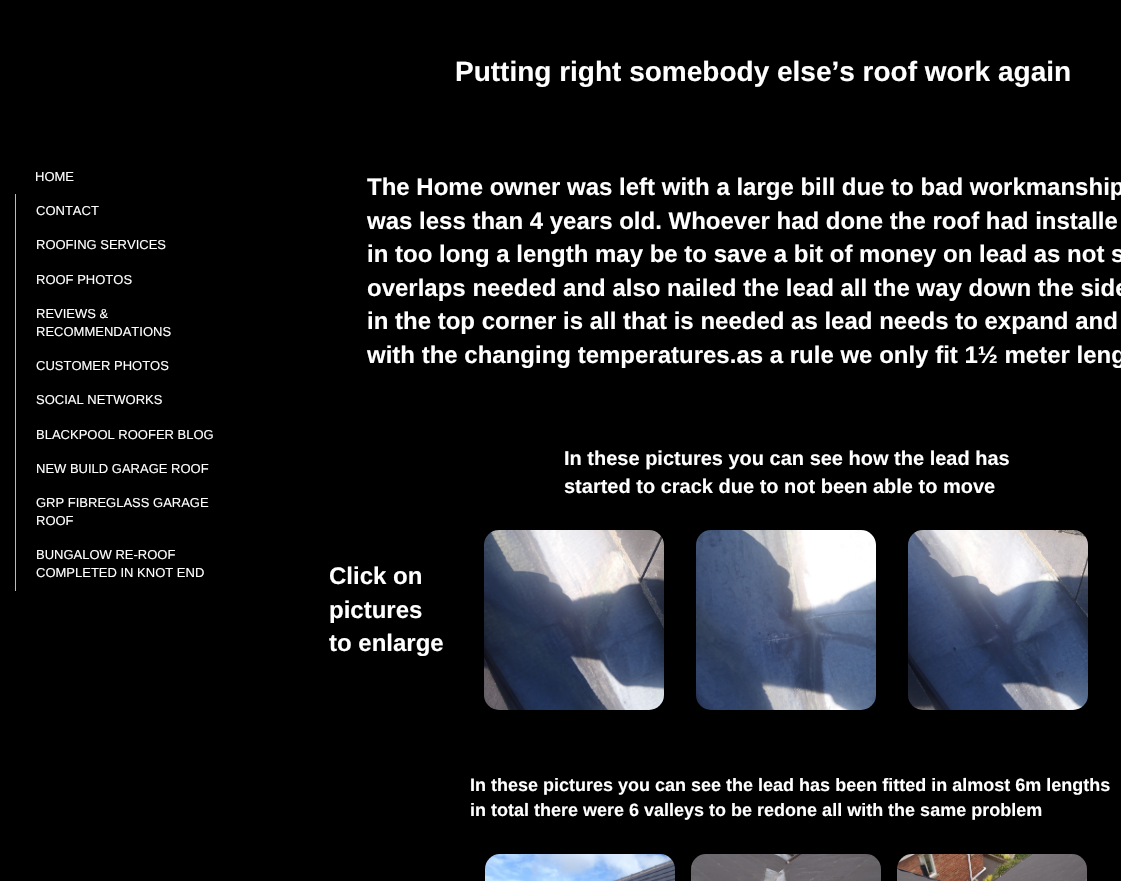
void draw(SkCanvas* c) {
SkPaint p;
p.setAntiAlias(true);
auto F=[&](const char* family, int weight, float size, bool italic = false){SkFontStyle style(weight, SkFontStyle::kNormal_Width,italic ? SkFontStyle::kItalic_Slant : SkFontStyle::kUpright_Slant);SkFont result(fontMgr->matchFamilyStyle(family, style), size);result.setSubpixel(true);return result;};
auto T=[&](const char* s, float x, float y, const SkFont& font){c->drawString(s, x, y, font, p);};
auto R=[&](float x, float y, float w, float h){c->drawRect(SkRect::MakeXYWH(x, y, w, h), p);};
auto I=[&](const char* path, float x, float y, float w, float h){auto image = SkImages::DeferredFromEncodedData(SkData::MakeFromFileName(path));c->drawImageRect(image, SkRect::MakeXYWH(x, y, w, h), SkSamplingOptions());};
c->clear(0xff000000);
auto f1 = F("Liberation Sans",700,28);
p.setColor(0xffffffff);
T("Putting right somebody else’s roof work again",455,81,f1);
auto f2 = F("Liberation Sans",400,13);
T("HOME",35,181,f2);
p.setColor(0xffbbbbbb);
R(15,194,1,397);
p.setColor(0xffffffff);
T("CONTACT",36,215,f2);
T("ROOFING SERVICES",36,249,f2);
T("ROOF PHOTOS",36,284,f2);
T("REVIEWS &",36,318,f2);
T("RECOMMENDATIONS",36,336,f2);
T("CUSTOMER PHOTOS",36,370,f2);
T("SOCIAL NETWORKS",36,404,f2);
T("BLACKPOOL ROOFER BLOG",36,439,f2);
T("NEW BUILD GARAGE ROOF",36,473,f2);
T("GRP FIBREGLASS GARAGE",36,507,f2);
T("ROOF",36,525,f2);
T("BUNGALOW RE-ROOF",36,559,f2);
T("COMPLETED IN KNOT END",36,577,f2);
auto f3 = F("Liberation Sans",700,24);
T("The Home owner was left with a large bill due to bad workmanship",367,195,f3);
T("was less than 4 years old. Whoever had done the roof had installe",367,229,f3);
T("in too long a length may be to save a bit of money on lead as not s",367,262,f3);
T("overlaps needed and also nailed the lead all the way down the side",367,296,f3);
T("in the top corner is all that is needed as lead needs to expand and",367,329,f3);
T("with the changing temperatures.as a rule we only fit 1½ meter leng",367,363,f3);
auto f4 = F("Liberation Sans",700,20);
T("In these pictures you can see how the lead has",564,465,f4);
T("started to crack due to not been able to move",564,493,f4);
T("Click on",329,584,f3);
T("pictures",329,618,f3);
T("to enlarge",329,651,f3);
I("1.png",484,530,180,180);
I("2.png",696,530,180,180);
I("3.png",908,530,180,180);
auto f5 = F("Liberation Sans",700,18);
T("In these pictures you can see the lead has been fitted in almost 6m lengths",470,791,f5);
T("in total there were 6 valleys to be redone all with the same problem",470,816,f5);
I("4.png",485,854,190,27);
I("5.png",691,854,190,27);
I("6.png",897,854,190,27);
}
